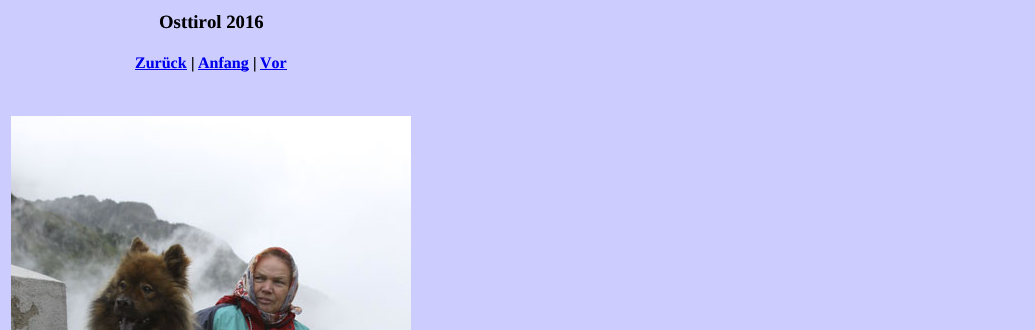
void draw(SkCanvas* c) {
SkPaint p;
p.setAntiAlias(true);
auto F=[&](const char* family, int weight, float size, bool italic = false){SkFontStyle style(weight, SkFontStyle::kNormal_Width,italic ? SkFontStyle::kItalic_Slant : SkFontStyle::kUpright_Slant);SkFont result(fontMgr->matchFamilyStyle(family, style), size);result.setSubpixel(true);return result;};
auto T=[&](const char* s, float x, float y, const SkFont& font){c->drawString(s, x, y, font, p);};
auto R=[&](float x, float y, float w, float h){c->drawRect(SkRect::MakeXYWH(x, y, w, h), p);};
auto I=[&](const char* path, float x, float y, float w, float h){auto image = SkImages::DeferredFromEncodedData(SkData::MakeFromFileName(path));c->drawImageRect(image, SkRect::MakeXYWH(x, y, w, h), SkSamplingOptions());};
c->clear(0xffccccff);
auto f1 = F("Liberation Serif",700,18.75);
p.setColor(0xff000000);
T("Osttirol 2016",159,28,f1);
auto f2 = F("Liberation Serif",700,16);
p.setColor(0xff0000ee);
T("Zurück",135,68,f2);
R(135,69,52,1);
p.setColor(0xff000000);
T("|",191,68,f2);
p.setColor(0xff0000ee);
R(198,69,51,1);
T("Anfang",198,68,f2);
p.setColor(0xff000000);
T("|",253,68,f2);
p.setColor(0xff0000ee);
T("Vor",260,68,f2);
R(260,69,27,1);
I("1.png",11,116,400,214);
}
